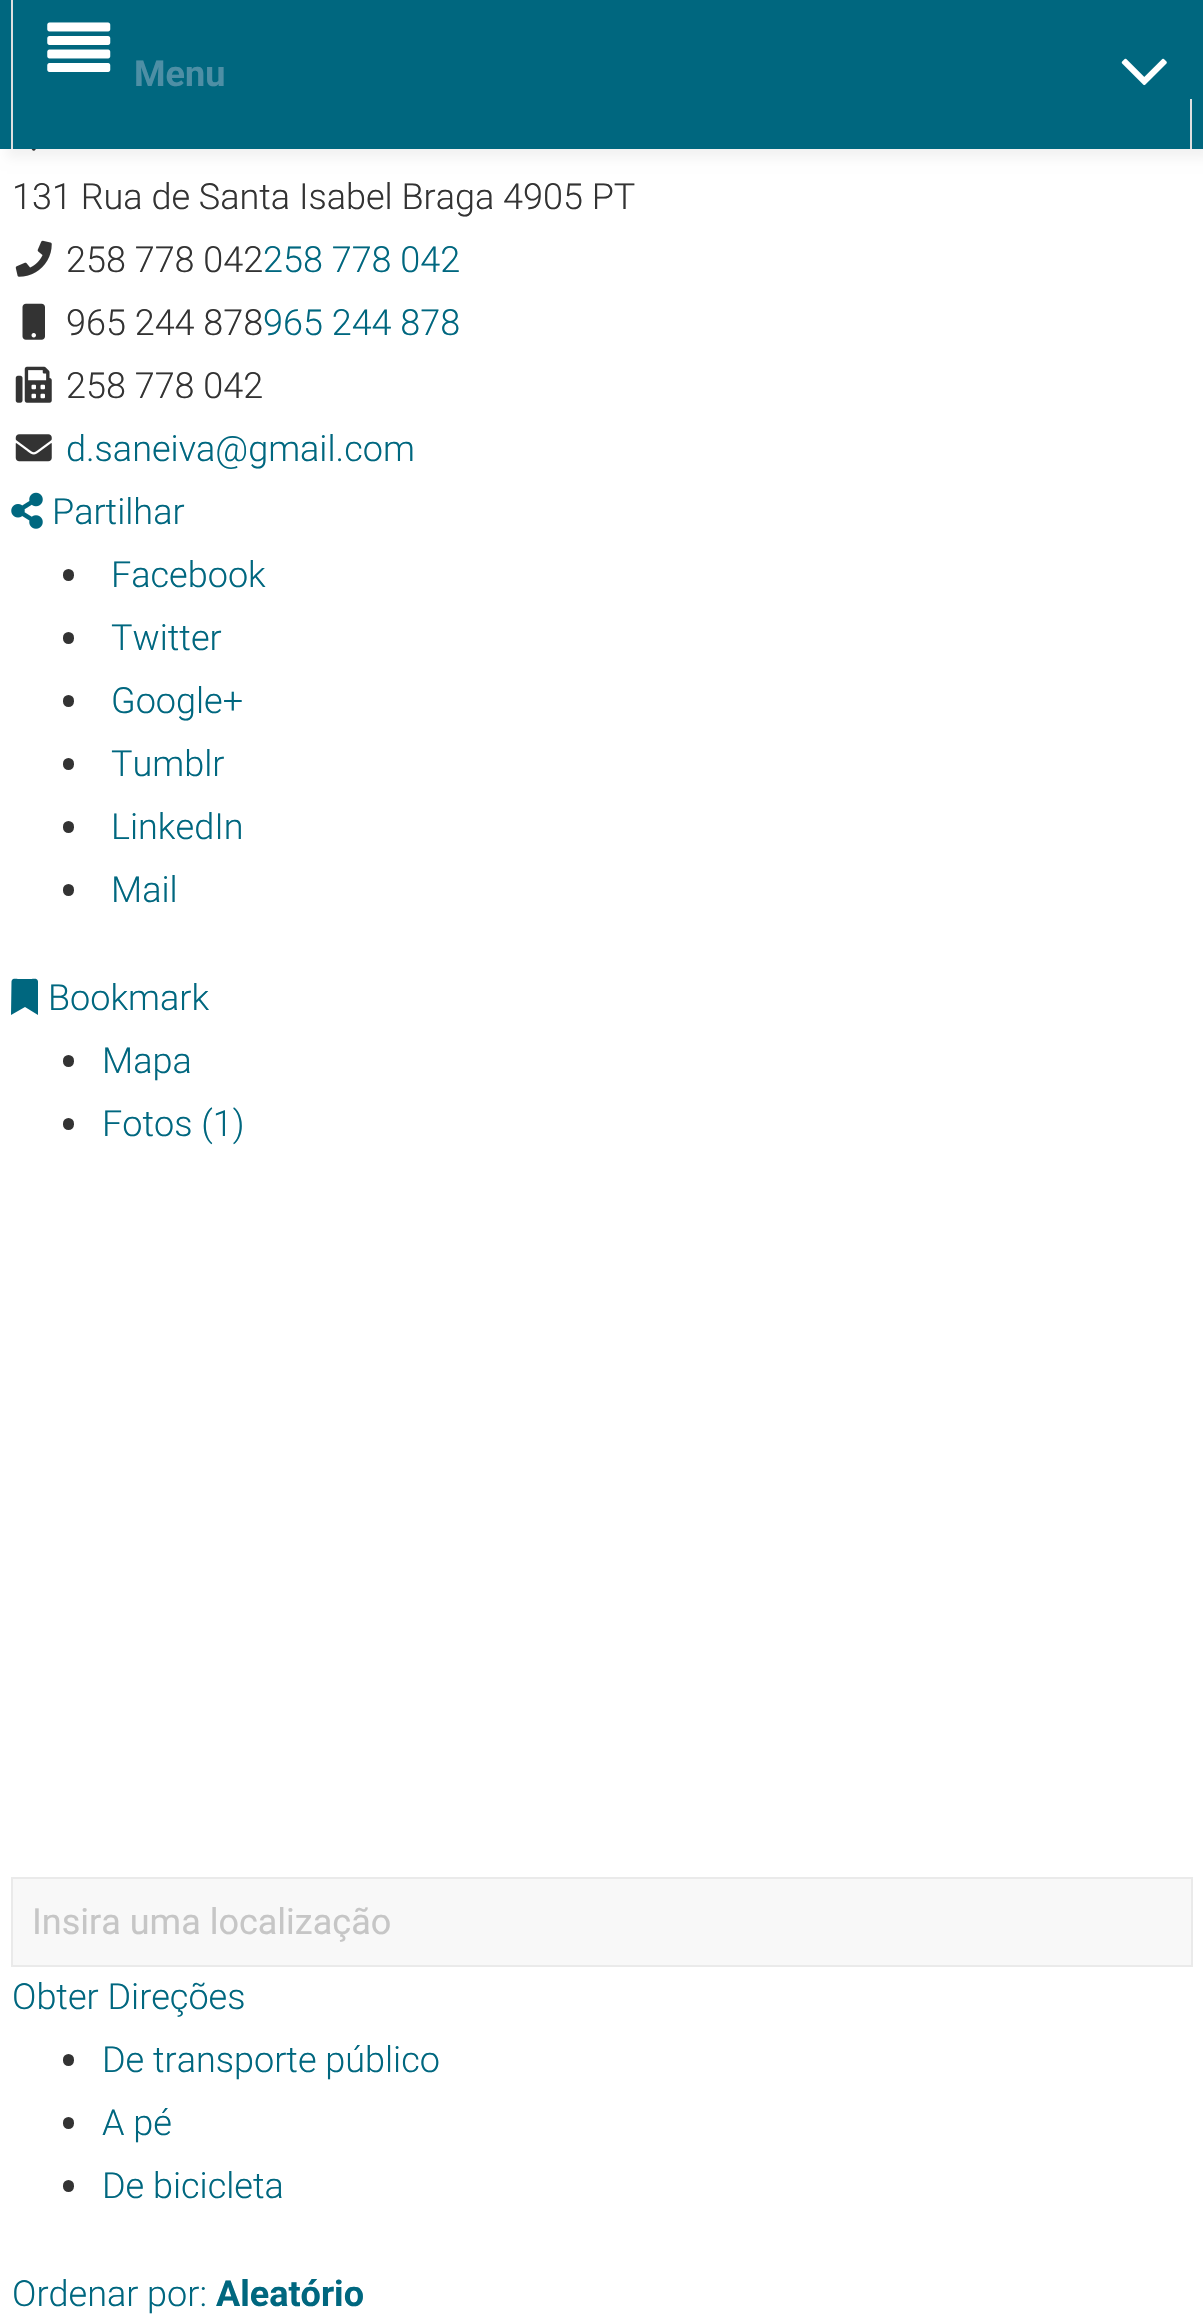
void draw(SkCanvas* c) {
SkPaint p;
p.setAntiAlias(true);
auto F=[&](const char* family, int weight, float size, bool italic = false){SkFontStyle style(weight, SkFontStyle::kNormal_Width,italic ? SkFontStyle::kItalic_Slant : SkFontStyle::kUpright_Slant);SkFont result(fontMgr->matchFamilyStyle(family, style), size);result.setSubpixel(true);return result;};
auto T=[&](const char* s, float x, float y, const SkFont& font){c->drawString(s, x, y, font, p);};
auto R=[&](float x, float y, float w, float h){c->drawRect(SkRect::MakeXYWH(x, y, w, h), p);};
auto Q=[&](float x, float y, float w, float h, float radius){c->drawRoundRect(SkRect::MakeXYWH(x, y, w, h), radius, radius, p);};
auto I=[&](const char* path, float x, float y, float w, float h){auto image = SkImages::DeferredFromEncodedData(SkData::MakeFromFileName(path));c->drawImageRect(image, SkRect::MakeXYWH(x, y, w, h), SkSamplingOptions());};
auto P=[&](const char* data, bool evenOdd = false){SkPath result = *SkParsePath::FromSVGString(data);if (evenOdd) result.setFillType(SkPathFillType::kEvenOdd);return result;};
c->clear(0xffffffff);
I("3.png",31,149,5,2);
p.setColor(0x0d000000);
p.setMaskFilter(SkMaskFilter::MakeBlur(kNormal_SkBlurStyle, 5.5));
c->drawRect(SkRect::MakeXYWH(7,9,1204,149),p);
p.setMaskFilter(nullptr);
p.setColor(0xff00677f);
R(0,0,1203,149);
p.setColor(0xffdfdfdf);
R(1190,99,2,50);
R(11,0,2,149);
I("1.png",47,22,64,50);
auto f1 = F("Roboto",700,36);
p.setColor(0xff4e8fa5);
T("Menu",134,86,f1);
I("2.png",1121,58,46,28);
auto f2 = F("Roboto",300,36);
p.setColor(0xff333333);
T("131 Rua de Santa Isabel Braga 4905 PT",12,209,f2);
I("4.png",15,240,37,37);
T("258 778 042",66,272,f2);
p.setColor(0xff00677f);
T("258 778 042",263,272,f2);
I("5.png",22,303,23,37);
p.setColor(0xff333333);
T("965 244 878",66,335,f2);
p.setColor(0xff00677f);
T("965 244 878",263,335,f2);
I("6.png",15,366,37,37);
p.setColor(0xff333333);
T("258 778 042",66,398,f2);
I("7.png",15,434,37,28);
p.setColor(0xff00677f);
T("d.saneiva@gmail.com",66,461,f2);
I("8.png",11,492,32,37);
T("Partilhar",52,524,f2);
p.setColor(0xff333333);
Q(63,569,11,12,5.5);
p.setColor(0xff00677f);
T("Facebook",111,587,f2);
p.setColor(0xff333333);
Q(63,632,11,12,5.5);
p.setColor(0xff00677f);
T("Twitter",111,650,f2);
p.setColor(0xff333333);
Q(63,695,11,12,5.5);
p.setColor(0xff00677f);
T("Google+",111,713,f2);
p.setColor(0xff333333);
Q(63,758,11,12,5.5);
p.setColor(0xff00677f);
T("Tumblr",111,776,f2);
p.setColor(0xff333333);
Q(63,821,11,12,5.5);
p.setColor(0xff00677f);
T("LinkedIn",111,839,f2);
p.setColor(0xff333333);
Q(63,884,11,12,5.5);
p.setColor(0xff00677f);
T("Mail",111,902,f2);
c->drawPath(P("M11 1015l.5-33.5c.5-3.5 4-2.5 6.5-2.5h13.5c2.5 0 6-1 6.5 2.5v33.5l-13-8z"),p);
T("Bookmark",48,1010,f2);
p.setColor(0xff333333);
Q(63,1055,11,12,5.5);
p.setColor(0xff00677f);
T("Mapa",102,1073,f2);
p.setColor(0xff333333);
Q(63,1118,11,12,5.5);
p.setColor(0xff00677f);
T("Fotos (1)",102,1136,f2);
p.setColor(0xfff8f8f8);
c->drawRect(SkRect::MakeXYWH(12,1878,1180,88),p);
p.setStroke(true);
p.setStrokeWidth(2);
p.setColor(0xffeaeaea);
c->drawRect(SkRect::MakeXYWH(12,1878,1180,88),p);
auto f3 = F("Roboto",400,36);
p.setStroke(false);
p.setColor(0xffc6c6c6);
T("Insira uma localização",32,1934,f3);
p.setColor(0xff00677f);
T("Obter Direções",12,2009,f2);
p.setColor(0xff333333);
Q(63,2054,11,12,5.5);
p.setColor(0xff00677f);
T("De transporte público",102,2072,f2);
p.setColor(0xff333333);
Q(63,2117,11,12,5.5);
p.setColor(0xff00677f);
T("A pé",102,2135,f2);
p.setColor(0xff333333);
Q(63,2180,11,12,5.5);
p.setColor(0xff00677f);
T("De bicicleta",102,2198,f2);
T("Ordenar por:",12,2306,f2);
T("Aleatório",216,2306,f1);
}
